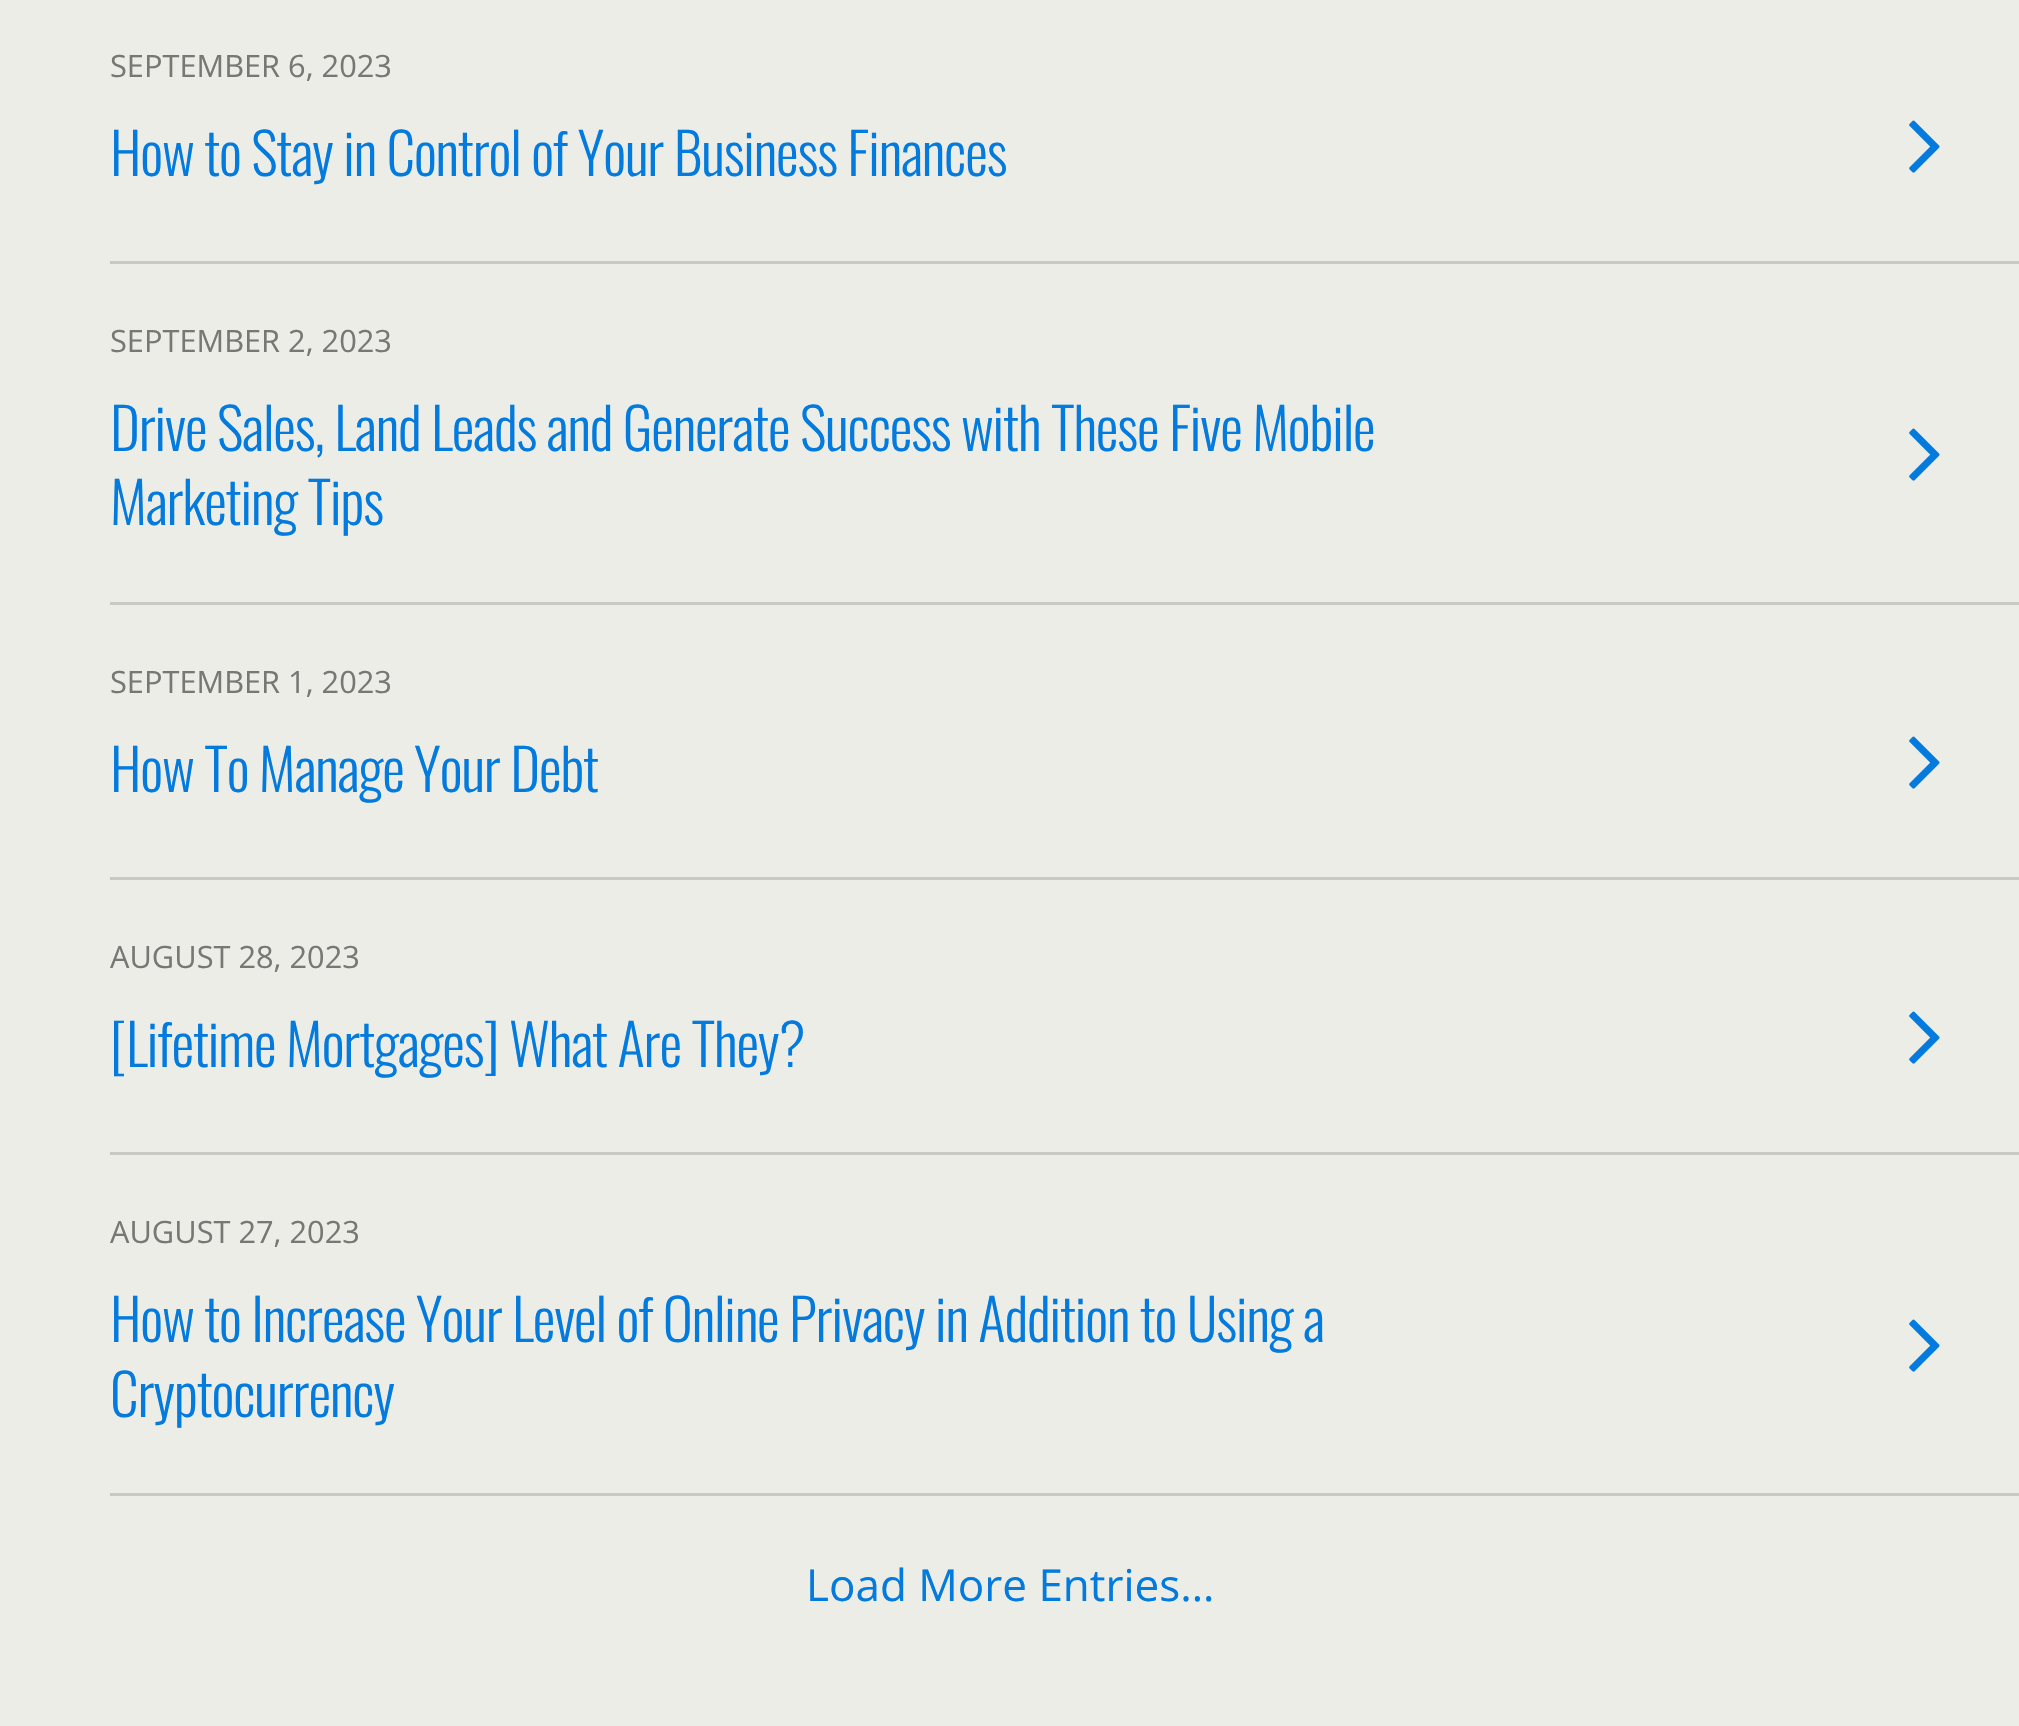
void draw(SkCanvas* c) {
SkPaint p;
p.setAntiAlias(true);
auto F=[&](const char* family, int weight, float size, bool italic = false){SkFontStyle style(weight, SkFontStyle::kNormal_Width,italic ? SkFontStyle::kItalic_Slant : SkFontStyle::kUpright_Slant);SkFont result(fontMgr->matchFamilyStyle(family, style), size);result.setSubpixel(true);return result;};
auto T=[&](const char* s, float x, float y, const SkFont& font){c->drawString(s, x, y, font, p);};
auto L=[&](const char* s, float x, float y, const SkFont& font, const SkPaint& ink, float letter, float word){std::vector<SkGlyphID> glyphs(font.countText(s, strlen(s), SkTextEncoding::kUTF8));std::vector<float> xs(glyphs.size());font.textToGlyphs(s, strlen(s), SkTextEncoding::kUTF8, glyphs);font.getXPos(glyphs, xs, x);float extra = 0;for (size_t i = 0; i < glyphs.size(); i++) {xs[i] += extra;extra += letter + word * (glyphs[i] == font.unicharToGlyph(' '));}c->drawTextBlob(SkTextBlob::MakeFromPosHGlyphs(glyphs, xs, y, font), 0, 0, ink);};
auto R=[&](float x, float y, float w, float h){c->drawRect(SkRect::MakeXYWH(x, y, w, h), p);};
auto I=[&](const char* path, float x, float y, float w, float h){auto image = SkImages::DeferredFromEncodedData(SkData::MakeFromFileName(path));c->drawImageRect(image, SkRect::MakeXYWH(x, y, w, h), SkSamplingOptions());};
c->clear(0xffedede7);
auto f1 = F("Open Sans",400,30.75);
p.setColor(0xff777774);
T("SEPTEMBER 6, 2023",110,77,f1);
auto f2 = F("Oswald",300,57.2);
p.setColor(0xff037add);
L("How to Stay in Control of Your Business Finances",110,176,f2,p,-1.15,0);
I("1.png",1909,120,31,53);
p.setColor(0xffc9c9c4);
R(110,261,1909,3);
p.setColor(0xff777774);
T("SEPTEMBER 2, 2023",110,352,f1);
p.setColor(0xff037add);
L("Drive Sales, Land Leads and Generate Success with These Five Mobile",110,451,f2,p,-1.15,0);
L("Marketing Tips",110,525,f2,p,-1.15,0);
I("1.png",1909,428,31,53);
p.setColor(0xffc9c9c4);
R(110,602,1909,3);
p.setColor(0xff777774);
T("SEPTEMBER 1, 2023",110,693,f1);
p.setColor(0xff037add);
L("How To Manage Your Debt",110,792,f2,p,-1.15,0);
I("1.png",1909,736,31,53);
p.setColor(0xffc9c9c4);
R(110,877,1909,3);
p.setColor(0xff777774);
T("AUGUST 28, 2023",110,968,f1);
p.setColor(0xff037add);
L("[Lifetime Mortgages] What Are They?",110,1067,f2,p,-1.15,0);
I("1.png",1909,1011,31,53);
p.setColor(0xffc9c9c4);
R(110,1152,1909,3);
p.setColor(0xff777774);
T("AUGUST 27, 2023",110,1243,f1);
p.setColor(0xff037add);
L("How to Increase Your Level of Online Privacy in Addition to Using a",110,1342,f2,p,-1.15,0);
L("Cryptocurrency",110,1417,f2,p,-1.15,0);
I("1.png",1909,1319,31,53);
p.setColor(0xffc9c9c4);
R(110,1493,1909,3);
auto f3 = F("Open Sans",400,44);
p.setColor(0xff037add);
T("Load More Entries…",806,1601,f3);
}
